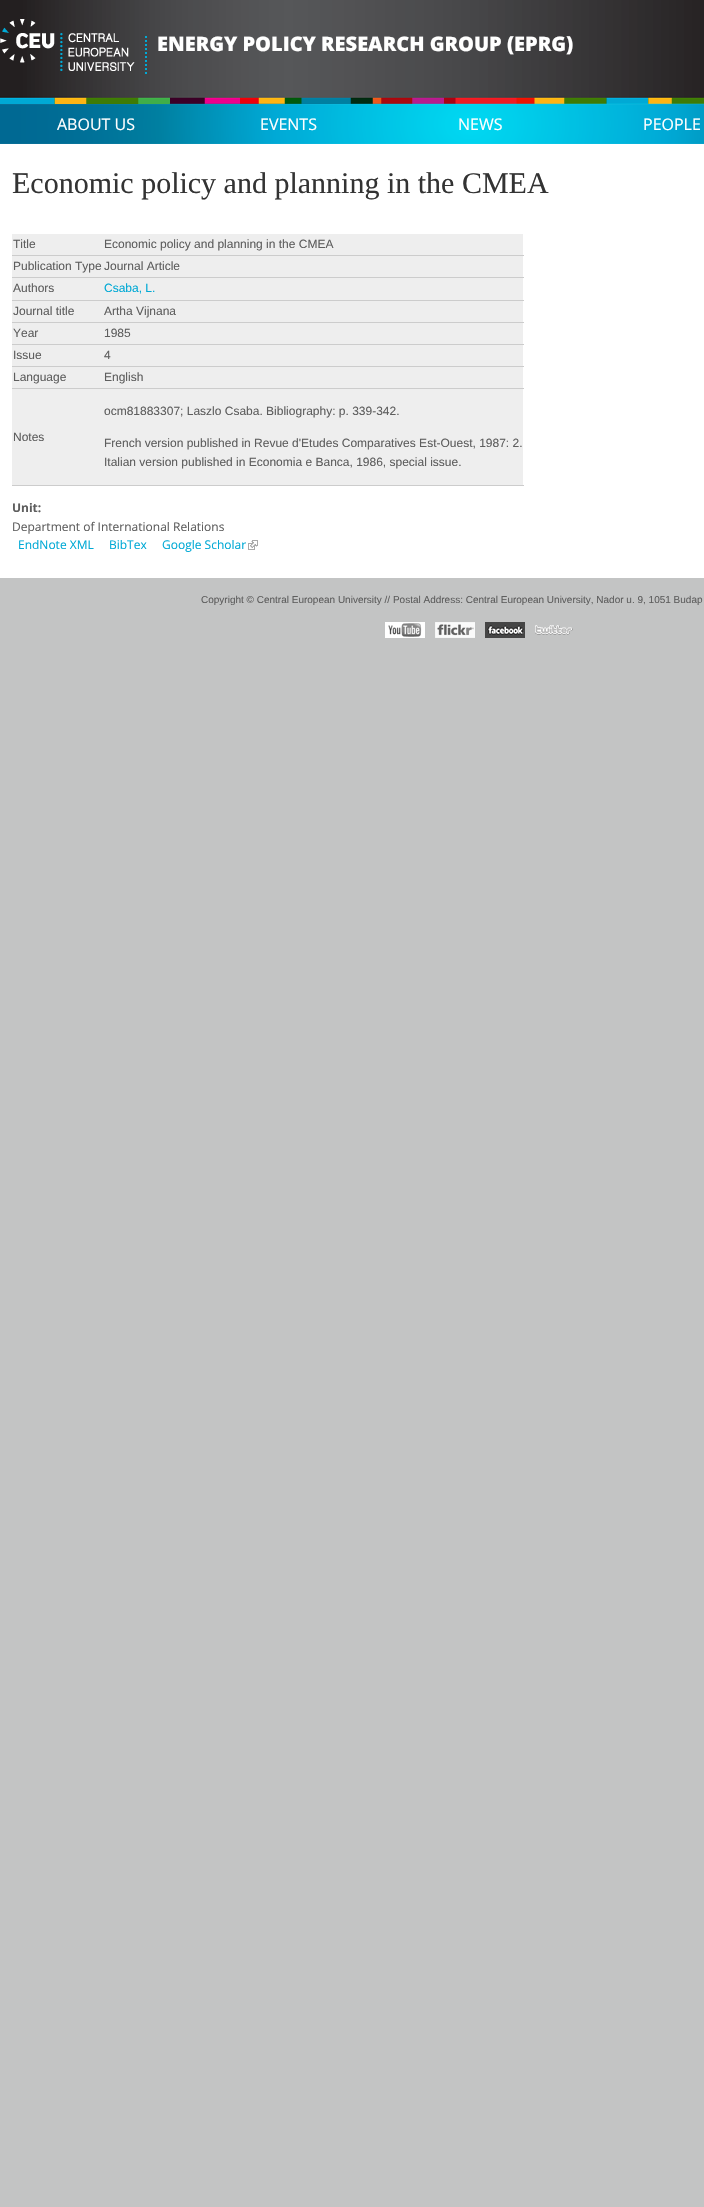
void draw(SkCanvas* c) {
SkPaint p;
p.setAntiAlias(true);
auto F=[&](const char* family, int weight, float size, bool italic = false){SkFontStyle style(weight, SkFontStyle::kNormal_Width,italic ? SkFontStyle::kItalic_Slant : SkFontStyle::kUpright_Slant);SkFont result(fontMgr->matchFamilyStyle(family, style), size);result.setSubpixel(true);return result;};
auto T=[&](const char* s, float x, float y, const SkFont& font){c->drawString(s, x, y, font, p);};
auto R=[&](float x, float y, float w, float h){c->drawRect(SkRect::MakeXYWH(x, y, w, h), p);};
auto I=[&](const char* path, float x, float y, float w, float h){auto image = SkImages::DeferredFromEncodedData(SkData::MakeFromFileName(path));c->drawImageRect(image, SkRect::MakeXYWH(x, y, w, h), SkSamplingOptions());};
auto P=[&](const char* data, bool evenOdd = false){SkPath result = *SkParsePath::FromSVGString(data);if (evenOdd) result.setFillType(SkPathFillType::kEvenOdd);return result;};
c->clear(0xffc3c4c4);
I("1.png",0,0,704,104);
I("2.png",0,19,135,52);
p.setStroke(true);
p.setStrokeWidth(2);
p.setColor(0xff00a9d5);
p.setPathEffect(SkDashPathEffect::Make({{2,2}}, 0));
c->drawPath(P("M146 36v38"),p);
p.setPathEffect(nullptr);
auto f1 = F("Open Sans",800,20);
p.setStroke(false);
p.setColor(0xffffffff);
T("ENERGY POLICY RESEARCH GROUP (EPRG)",157,51,f1);
R(0,104,704,474);
I("3.png",0,104,704,40);
auto f2 = F("Open Sans",400,16);
T("ABOUT US",57,130,f2);
T("EVENTS",260,130,f2);
T("NEWS",458,130,f2);
T("PEOPLE",643,130,f2);
auto f3 = F("Liberation Serif",400,30);
p.setColor(0xff333333);
T("Economic policy and planning in the CMEA",12,193,f3);
p.setColor(0xffeeeeee);
R(12,234,511,21);
p.setColor(0xffcccccc);
R(12,255,512,1);
auto f4 = F("Liberation Sans",400,12);
p.setColor(0xff5e5e5e);
T("Title",13,248,f4);
T("Economic policy and planning in the CMEA",104,248,f4);
p.setColor(0xffeeeeee);
R(12,256,511,21);
p.setColor(0xffcccccc);
R(12,277,512,1);
p.setColor(0xff5e5e5e);
T("Publication Type",13,270,f4);
T("Journal Article",104,270,f4);
p.setColor(0xffeeeeee);
R(12,278,511,22);
p.setColor(0xffcccccc);
R(12,300,512,1);
p.setColor(0xff5e5e5e);
T("Authors",13,292,f4);
p.setColor(0xff00a9d5);
T("Csaba, L.",104,292,f4);
p.setColor(0xffeeeeee);
R(12,301,511,21);
p.setColor(0xffcccccc);
R(12,322,512,1);
p.setColor(0xff5e5e5e);
T("Journal title",13,315,f4);
T("Artha Vijnana",104,315,f4);
p.setColor(0xffeeeeee);
R(12,323,511,21);
p.setColor(0xffcccccc);
R(12,344,512,1);
p.setColor(0xff5e5e5e);
T("Year",13,337,f4);
T("1985",104,337,f4);
p.setColor(0xffeeeeee);
R(12,345,511,21);
p.setColor(0xffcccccc);
R(12,366,512,1);
p.setColor(0xff5e5e5e);
T("Issue",13,359,f4);
T("4",104,359,f4);
p.setColor(0xffeeeeee);
R(12,367,511,21);
p.setColor(0xffcccccc);
R(12,388,512,1);
p.setColor(0xff5e5e5e);
T("Language",13,381,f4);
T("English",104,381,f4);
p.setColor(0xffeeeeee);
R(12,389,511,96);
p.setColor(0xffcccccc);
R(12,485,512,1);
p.setColor(0xff5e5e5e);
T("Notes",13,441,f4);
T("ocm81883307; Laszlo Csaba. Bibliography: p. 339-342.",104,415,f4);
T("French version published in Revue d'Etudes Comparatives Est-Ouest, 1987: 2.",104,447,f4);
T("Italian version published in Economia e Banca, 1986, special issue.",104,466,f4);
auto f5 = F("Open Sans",700,12);
T("Unit:",12,512,f5);
auto f6 = F("Open Sans",400,12);
T("Department of International Relations",12,531,f6);
p.setColor(0xff00a9d5);
T("EndNote XML",18,549,f6);
T("BibTex",109,549,f6);
T("Google Scholar",162,549,f6);
I("4.png",248,540,10,10);
auto f7 = F("Liberation Sans",400,10);
p.setColor(0xff5e5e5e);
T("Copyright © Central European University // Postal Address: Central European University, Nador u. 9, 1051 Budap",201,603,f7);
I("5.png",385,622,40,16);
I("6.png",435,622,40,16);
I("7.png",485,622,40,16);
I("8.png",535,625,38,10);
}
